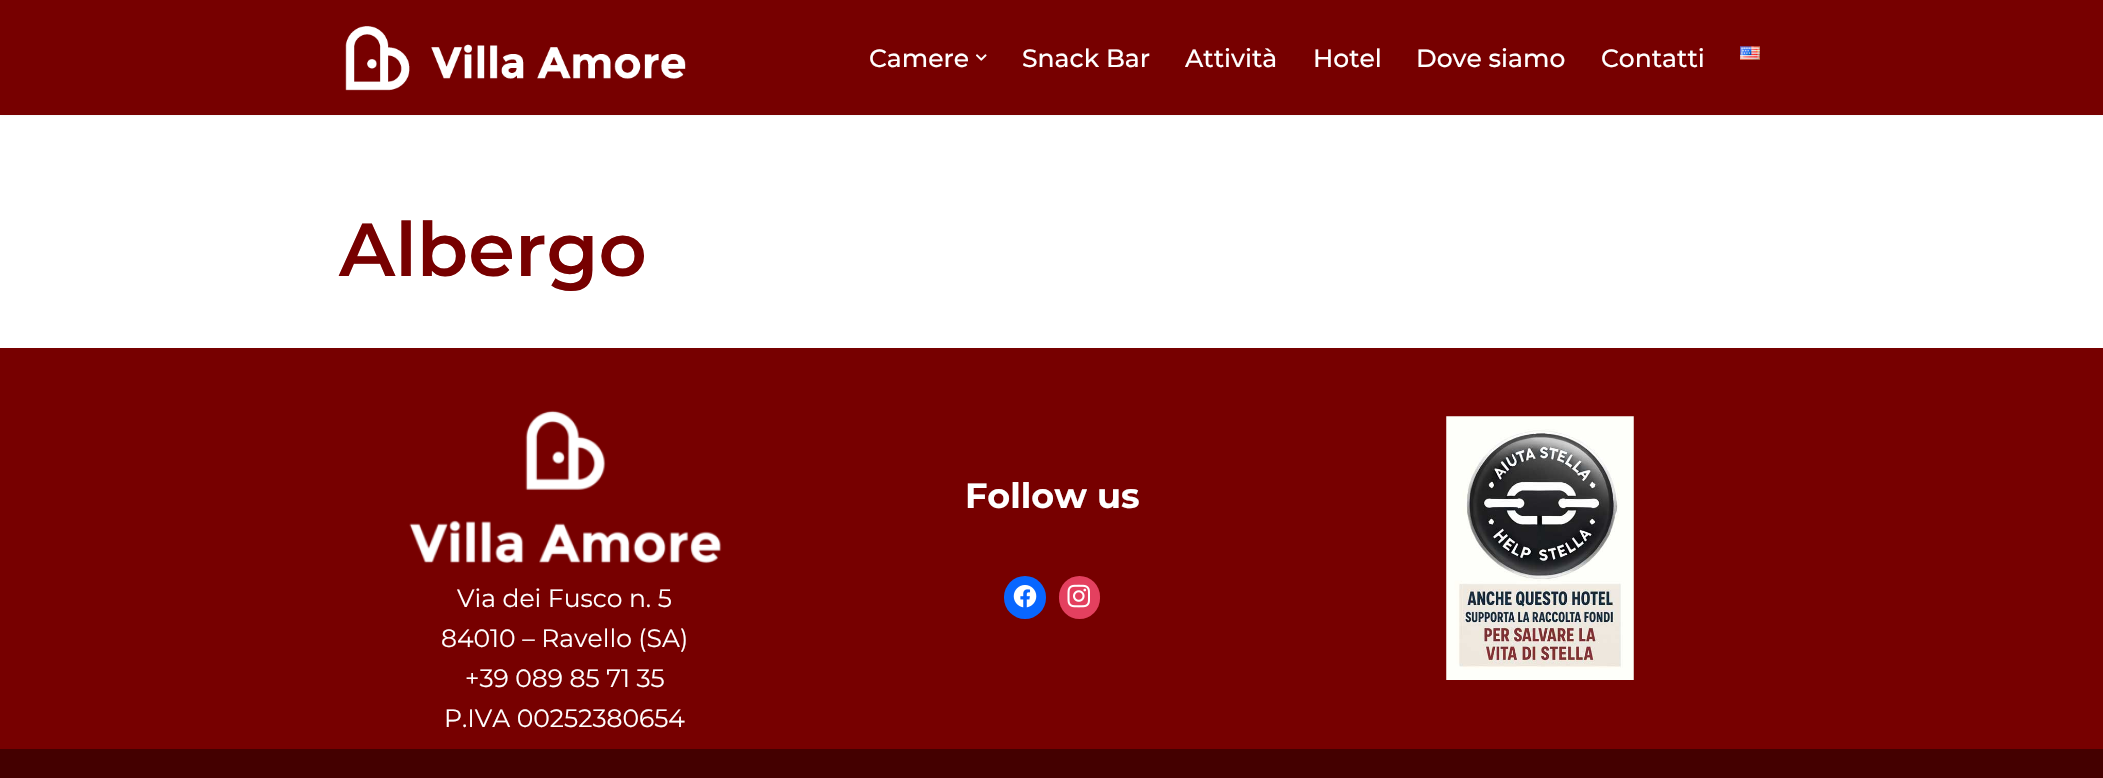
void draw(SkCanvas* c) {
SkPaint p;
p.setAntiAlias(true);
auto F=[&](const char* family, int weight, float size, bool italic = false){SkFontStyle style(weight, SkFontStyle::kNormal_Width,italic ? SkFontStyle::kItalic_Slant : SkFontStyle::kUpright_Slant);SkFont result(fontMgr->matchFamilyStyle(family, style), size);result.setSubpixel(true);return result;};
auto T=[&](const char* s, float x, float y, const SkFont& font){c->drawString(s, x, y, font, p);};
auto R=[&](float x, float y, float w, float h){c->drawRect(SkRect::MakeXYWH(x, y, w, h), p);};
auto Q=[&](float x, float y, float w, float h, float radius){c->drawRoundRect(SkRect::MakeXYWH(x, y, w, h), radius, radius, p);};
auto I=[&](const char* path, float x, float y, float w, float h){auto image = SkImages::DeferredFromEncodedData(SkData::MakeFromFileName(path));c->drawImageRect(image, SkRect::MakeXYWH(x, y, w, h), SkSamplingOptions());};
c->clear(0xffffffff);
p.setColor(0x1a000000);
p.setMaskFilter(SkMaskFilter::MakeBlur(kNormal_SkBlurStyle, 2));
c->drawRect(SkRect::MakeXYWH(0,-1,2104,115),p);
p.setMaskFilter(nullptr);
p.setColor(0xff770000);
R(0,0,2103,115);
I("1.png",345,26,341,65);
auto f1 = F("Montserrat",500,25);
p.setColor(0xffffffff);
T("Camere",869,67,f1);
I("2.png",976,54,11,7);
T("Snack Bar",1022,67,f1);
T("Attività",1185,67,f1);
T("Hotel",1313,67,f1);
T("Dove siamo",1416,67,f1);
T("Contatti",1601,67,f1);
I("3.png",1740,46,20,14);
auto f2 = F("Montserrat",600,75);
p.setColor(0xff770000);
T("Albergo",339,276,f2);
R(0,348,2103,401);
auto f3 = F("Montserrat",700,35);
p.setColor(0xffffffff);
T("Follow us",965,508,f3);
p.setColor(0xff0866ff);
Q(1004,576,42,43,21);
I("4.png",1013,585,24,23);
p.setColor(0xffe4405f);
Q(1059,576,41,43,20.5);
I("5.png",1067,584,23,24);
I("6.png",1446,416,188,264);
I("7.png",409,410,313,154);
auto f4 = F("Montserrat",400,25);
p.setColor(0xffffffff);
T("Via dei Fusco n. 5",457,607,f4);
T("84010 – Ravello (SA)",441,647,f4);
T("+39 089 85 71 35",465,687,f4);
T("P.IVA 00252380654",444,727,f4);
p.setColor(0xff440000);
R(0,749,2103,29);
}
